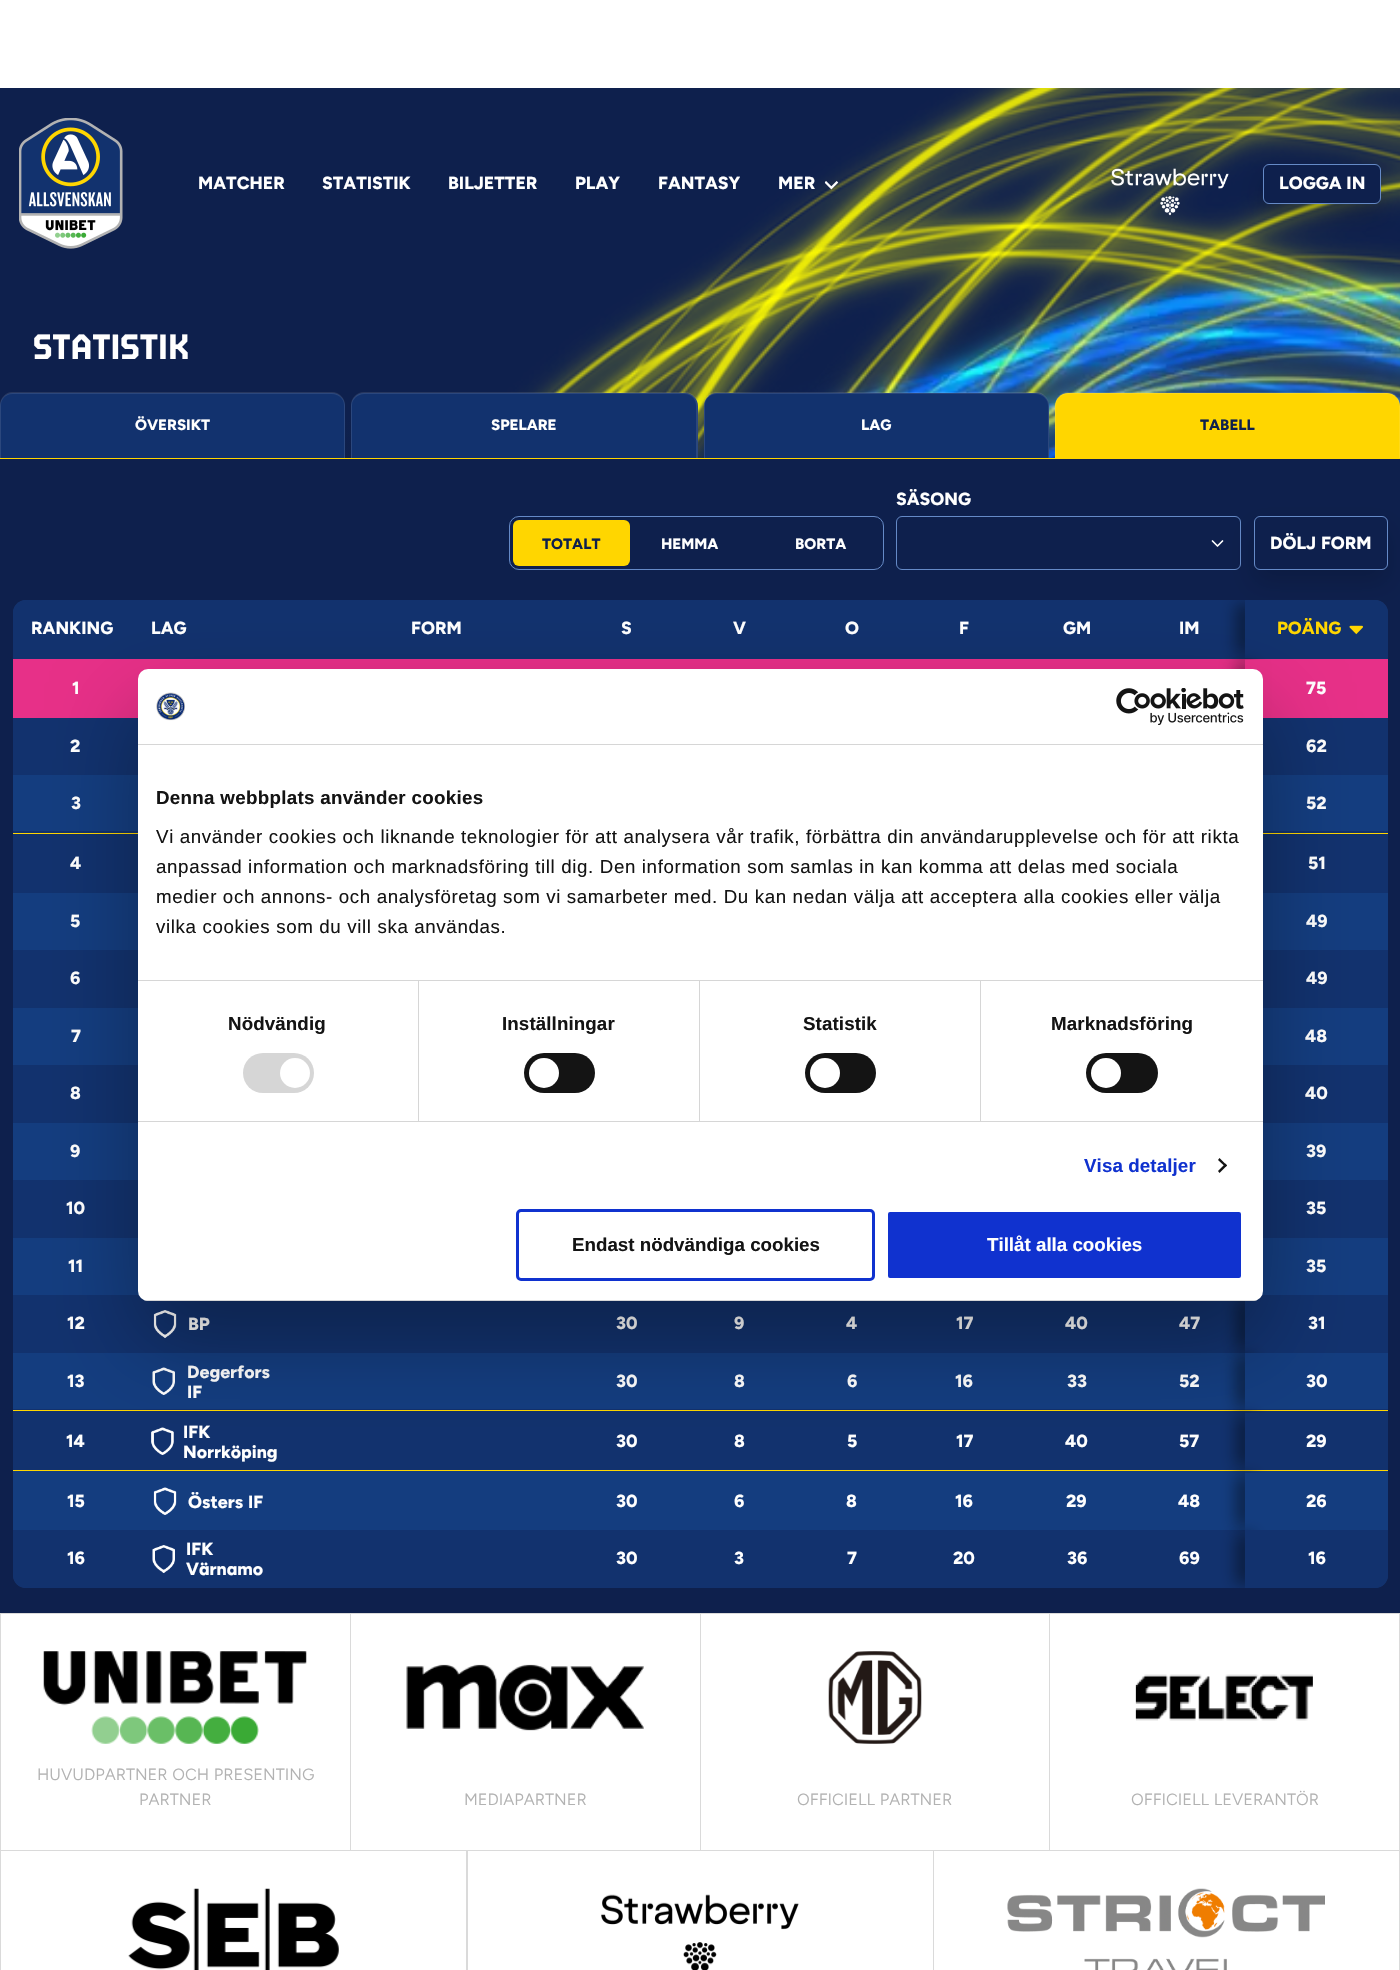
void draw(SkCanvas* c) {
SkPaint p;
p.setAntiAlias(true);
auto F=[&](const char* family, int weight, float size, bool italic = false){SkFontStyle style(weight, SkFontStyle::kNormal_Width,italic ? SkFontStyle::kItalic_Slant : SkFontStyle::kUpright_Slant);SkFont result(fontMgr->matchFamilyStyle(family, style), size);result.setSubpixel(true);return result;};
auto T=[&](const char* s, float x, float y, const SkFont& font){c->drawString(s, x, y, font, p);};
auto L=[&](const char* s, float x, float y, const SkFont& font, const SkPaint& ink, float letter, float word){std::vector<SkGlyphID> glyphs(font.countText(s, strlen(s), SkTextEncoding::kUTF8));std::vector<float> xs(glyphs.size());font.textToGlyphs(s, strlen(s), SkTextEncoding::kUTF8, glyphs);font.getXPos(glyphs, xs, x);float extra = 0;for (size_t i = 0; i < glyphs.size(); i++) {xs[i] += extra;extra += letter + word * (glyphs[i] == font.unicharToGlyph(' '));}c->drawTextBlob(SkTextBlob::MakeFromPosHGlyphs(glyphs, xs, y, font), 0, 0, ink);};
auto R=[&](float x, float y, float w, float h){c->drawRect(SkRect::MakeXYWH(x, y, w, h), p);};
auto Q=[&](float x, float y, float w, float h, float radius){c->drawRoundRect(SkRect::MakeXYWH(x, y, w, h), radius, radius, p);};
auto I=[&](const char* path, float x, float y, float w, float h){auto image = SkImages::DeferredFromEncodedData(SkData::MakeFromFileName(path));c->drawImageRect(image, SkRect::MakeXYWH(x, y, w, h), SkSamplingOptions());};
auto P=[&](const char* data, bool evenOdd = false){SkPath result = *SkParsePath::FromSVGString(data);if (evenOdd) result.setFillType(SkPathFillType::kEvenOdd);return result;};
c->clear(0xff0e204d);
I("1.png",345,88,1055,370);
p.setColor(0xffffffff);
R(0,0,1400,88);
I("2.png",19,118,104,131);
auto f1 = F("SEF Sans",700,17.5);
T("MATCHER",198,189,f1);
T("STATISTIK",322,189,f1);
T("BILJETTER",448,189,f1);
T("PLAY",575,189,f1);
T("FANTASY",658,189,f1);
T("MER",778,189,f1);
I("3.png",824,181,15,9);
p.setColor(0x26000000);
p.setMaskFilter(SkMaskFilter::MakeBlur(kNormal_SkBlurStyle, 12.5));
c->drawRoundRect(SkRect::MakeXYWH(1263,176,118,40),6,6,p);
p.setMaskFilter(nullptr);
I("4.png",1111,168,118,48);
p.setColor(0xff0e204d);
c->drawRoundRect(SkRect::MakeXYWH(1263.5,164.5,117,39),5.5,5.5,p);
p.setStroke(true);
p.setStrokeWidth(1);
p.setColor(0xff658ac7);
c->drawRoundRect(SkRect::MakeXYWH(1263.5,164.5,117,39),5.5,5.5,p);
p.setStroke(false);
p.setColor(0xffffffff);
T("LOGGA IN",1279,189,f1);
auto f2 = F("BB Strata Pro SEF",700,32.5);
T("STATISTIK",33,359,f2);
p.setColor(0xffffd600);
R(0,458,1400,1);
p.setColor(0xff12326e);
c->drawPath(P("M13 393h319c7 0 13 6 13 13v52h-345v-52c0-7 6-13 13-13z"),p);
p.setColor(0x1affffff);
c->drawPath(P("M12 392h320c7 0 13 6 13 13v53h-345v-53c0-7 6-13 12-13zm0 2h320c7 0 12 5 12 11v53h-343v-53c0-6 5-11 11-11z",true),p);
auto f3 = F("SEF Sans",700,15);
p.setColor(0xffffffff);
T("ÖVERSIKT",135,430,f3);
p.setColor(0xff12326e);
c->drawPath(P("M364 393h321c7 0 13 6 13 13v52h-347v-52c0-7 6-13 13-13z"),p);
p.setColor(0x1affffff);
c->drawPath(P("M364 392h321c7 0 13 6 13 13v53h-347v-53c0-7 6-13 13-13zm0 2h321c6 0 11 5 11 11v53h-344v-53c0-6 6-11 12-11z",true),p);
p.setColor(0xffffffff);
T("SPELARE",491,430,f3);
p.setColor(0xff12326e);
c->drawPath(P("M717 393h319c7 0 13 6 13 13v52h-345v-52c0-7 6-13 13-13z"),p);
p.setColor(0x1affffff);
c->drawPath(P("M716 392h320c7 0 13 6 13 13v53h-345v-53c0-7 5-13 12-13zm0 2h320c6 0 12 5 12 11v53h-343v-53c0-6 5-11 11-11z",true),p);
p.setColor(0xffffffff);
T("LAG",861,430,f3);
p.setColor(0xffffd600);
c->drawPath(P("M1068 393h319c7 0 13 6 13 13v52h-345v-52c0-7 6-13 13-13z"),p);
p.setColor(0x1affffff);
c->drawPath(P("M1068 392h320c6 0 12 6 12 13v53h-345v-53c0-7 6-13 13-13zm0 2h320c6 0 11 5 11 11v53h-343v-53c0-6 5-11 12-11z",true),p);
p.setColor(0xff0e204d);
T("TABELL",1200,430,f3);
p.setColor(0xffffffff);
T("SÄSONG",896,505,f1);
p.setStroke(true);
p.setStrokeWidth(1.7);
p.setStrokeCap(SkPaint::kRound_Cap);
p.setStrokeJoin(SkPaint::kRound_Join);
c->drawPath(P("M1212.5 541l5 5l5-5"),p);
p.setStrokeWidth(1);
p.setStrokeCap(SkPaint::kButt_Cap);
p.setStrokeJoin(SkPaint::kMiter_Join);
p.setColor(0xff658ac7);
c->drawRoundRect(SkRect::MakeXYWH(896.5,516.5,344,53),5.5,5.5,p);
c->drawRoundRect(SkRect::MakeXYWH(509.5,516.5,374,53),9.5,9.5,p);
p.setStroke(false);
p.setColor(0xffffd600);
Q(513,520,117,46,6);
p.setColor(0xff0e204d);
T("TOTALT",542,549,f3);
p.setColor(0xffffffff);
T("HEMMA",661,549,f3);
T("BORTA",795,549,f3);
p.setColor(0x26000000);
p.setMaskFilter(SkMaskFilter::MakeBlur(kNormal_SkBlurStyle, 12.5));
c->drawRoundRect(SkRect::MakeXYWH(1254,529,134,54),6,6,p);
p.setMaskFilter(nullptr);
p.setColor(0xff0e204d);
c->drawRoundRect(SkRect::MakeXYWH(1254.5,516.5,133,53),5.5,5.5,p);
p.setStroke(true);
p.setColor(0xff658ac7);
c->drawRoundRect(SkRect::MakeXYWH(1254.5,516.5,133,53),5.5,5.5,p);
p.setStroke(false);
p.setColor(0xffffffff);
T("DÖLJ FORM",1270,549,f1);
p.setColor(0xff12326e);
Q(13,600,1375,988,13);
c->drawPath(P("M26 600h107v59h-120v-46c0-7 6-13 13-13z"),p);
p.setColor(0xffffffff);
T("RANKING",31,634,f1);
T("LAG",151,634,f1);
T("FORM",411,634,f1);
T("S",621,634,f1);
T("V",733,634,f1);
T("O",845,634,f1);
T("F",959,634,f1);
T("GM",1063,634,f1);
T("IM",1179,634,f1);
p.setColor(0xff12326e);
c->drawPath(P("M1245 600h130c7 0 13 6 13 13v46h-143z"),p);
p.setColor(0xffe73088);
R(13,659,1232,59);
c->save();
c->clipPath(P("M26 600h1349c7 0 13 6 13 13v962c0 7-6 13-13 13h-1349c-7 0-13-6-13-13v-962c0-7 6-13 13-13z"),true);
c->clipPath(P("M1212 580h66v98h-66zm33 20h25v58h-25z",true),true);
p.setColor(0x6b000000);
p.setMaskFilter(SkMaskFilter::MakeBlur(kNormal_SkBlurStyle, 7.5));
c->drawRect(SkRect::MakeXYWH(1236,604,18,50),p);
p.setMaskFilter(nullptr);
c->restore();
p.setColor(0xffffd600);
T("POÄNG",1277,634,f1);
I("5.png",1349,625,14,10);
p.setColor(0xffffffff);
T("1",72,694,f1);
p.setColor(0xffe73088);
R(1245,659,143,59);
c->save();
c->clipPath(P("M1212 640h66v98h-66zm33 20h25v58h-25z",true),true);
p.setColor(0x6b000000);
p.setMaskFilter(SkMaskFilter::MakeBlur(kNormal_SkBlurStyle, 7.5));
c->drawRect(SkRect::MakeXYWH(1236,664,18,50),p);
p.setMaskFilter(nullptr);
c->restore();
p.setColor(0xffffffff);
T("75",1306,694,f1);
T("2",70,752,f1);
T("62",1306,752,f1);
p.setColor(0xffffd600);
R(13,833,1375,1);
p.setColor(0xff143d7f);
R(13,775,125,56);
p.setColor(0xffffffff);
T("3",71,809,f1);
p.setColor(0xff143d7f);
R(1263,775,125,56);
p.setColor(0xffffffff);
T("52",1306,809,f1);
T("4",70,869,f1);
T("51",1308,869,f1);
p.setColor(0xff143d7f);
R(13,893,125,57);
p.setColor(0xffffffff);
T("5",70,927,f1);
p.setColor(0xff143d7f);
R(1263,893,125,57);
p.setColor(0xffffffff);
T("49",1306,927,f1);
T("6",70,984,f1);
T("49",1306,984,f1);
p.setColor(0xff143d7f);
R(13,1008,125,57);
p.setColor(0xffffffff);
T("7",71,1042,f1);
p.setColor(0xff143d7f);
R(1263,1008,125,57);
p.setColor(0xffffffff);
T("48",1305,1042,f1);
T("8",70,1099,f1);
T("40",1305,1099,f1);
p.setColor(0xff143d7f);
R(13,1123,125,57);
p.setColor(0xffffffff);
T("9",70,1157,f1);
p.setColor(0xff143d7f);
R(1263,1123,125,57);
p.setColor(0xffffffff);
T("39",1306,1157,f1);
T("10",66,1214,f1);
T("35",1306,1214,f1);
p.setColor(0xff143d7f);
R(13,1238,126,57);
p.setColor(0xffffffff);
T("11",68,1272,f1);
p.setColor(0xff143d7f);
R(1262,1238,126,57);
c->save();
c->clipRect(SkRect::MakeXYWH(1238,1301,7,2));
p.setColor(0x6b000000);
p.setMaskFilter(SkMaskFilter::MakeBlur(kNormal_SkBlurStyle, 7.5));
c->drawRect(SkRect::MakeXYWH(1236,1241,18,50),p);
p.setMaskFilter(nullptr);
c->restore();
p.setColor(0xffffffff);
T("35",1306,1272,f1);
T("12",67,1329,f1);
I("6.png",153,1310,24,28);
T("BP",188,1330,f1);
T("30",616,1329,f1);
T("9",734,1329,f1);
T("4",846,1329,f1);
T("17",956,1329,f1);
T("40",1065,1329,f1);
T("47",1179,1329,f1);
p.setColor(0xff12326e);
R(1245,1295,15,7);
p.setColor(0xff143d7f);
R(13,1353,1232,56);
c->save();
c->clipPath(P("M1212 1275h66v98h-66zm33 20h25v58h-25z",true),true);
p.setColor(0x6b000000);
p.setMaskFilter(SkMaskFilter::MakeBlur(kNormal_SkBlurStyle, 7.5));
c->drawRect(SkRect::MakeXYWH(1236,1299,18,50),p);
p.setMaskFilter(nullptr);
c->restore();
p.setColor(0xffffffff);
T("31",1308,1329,f1);
p.setColor(0xffffd600);
R(13,1410,1375,1);
p.setColor(0xffffffff);
T("13",67,1387,f1);
I("7.png",152,1367,23,28);
T("Degerfors",187,1378,f1);
T("IF",187,1398,f1);
T("30",616,1387,f1);
T("8",734,1387,f1);
T("6",847,1387,f1);
T("16",955,1387,f1);
T("33",1067,1387,f1);
T("52",1179,1387,f1);
p.setColor(0xff143d7f);
R(1245,1353,143,56);
c->save();
c->clipPath(P("M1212 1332h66v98h-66zm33 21h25v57h-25z",true),true);
p.setColor(0x6b000000);
p.setMaskFilter(SkMaskFilter::MakeBlur(kNormal_SkBlurStyle, 7.5));
c->drawRect(SkRect::MakeXYWH(1236,1356,18,50),p);
p.setMaskFilter(nullptr);
c->restore();
p.setColor(0xffffffff);
T("30",1306,1387,f1);
p.setColor(0xffffd600);
R(13,1470,1375,1);
p.setColor(0xffffffff);
T("14",66,1447,f1);
I("8.png",151,1427,23,28);
T("IFK",183,1438,f1);
T("Norrköping",183,1458,f1);
T("30",616,1447,f1);
T("8",734,1447,f1);
T("5",847,1447,f1);
T("17",956,1447,f1);
T("40",1065,1447,f1);
T("57",1179,1447,f1);
p.setColor(0xff12326e);
R(1245,1411,14,6);
p.setColor(0xff143d7f);
R(13,1471,1232,59);
c->save();
c->clipPath(P("M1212 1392h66v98h-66zm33 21h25v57h-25z",true),true);
p.setColor(0x6b000000);
p.setMaskFilter(SkMaskFilter::MakeBlur(kNormal_SkBlurStyle, 7.5));
c->drawRect(SkRect::MakeXYWH(1236,1416,18,50),p);
p.setMaskFilter(nullptr);
c->restore();
p.setColor(0xffffffff);
T("29",1306,1447,f1);
T("15",67,1507,f1);
I("9.png",153,1487,24,28);
T("Östers IF",188,1508,f1);
T("30",616,1507,f1);
T("6",734,1507,f1);
T("8",846,1507,f1);
T("16",955,1507,f1);
T("29",1066,1507,f1);
T("48",1178,1507,f1);
p.setColor(0xff143d7f);
R(1245,1471,143,59);
c->save();
c->clipPath(P("M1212 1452h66v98h-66zm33 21h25v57h-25z",true),true);
p.setColor(0x6b000000);
p.setMaskFilter(SkMaskFilter::MakeBlur(kNormal_SkBlurStyle, 7.5));
c->drawRect(SkRect::MakeXYWH(1236,1476,18,50),p);
p.setMaskFilter(nullptr);
c->restore();
p.setColor(0xffffffff);
T("26",1306,1507,f1);
p.setColor(0xff12326e);
c->drawPath(P("M13 1530h120v58h-107c-7 0-13-6-13-13z"),p);
p.setColor(0xffffffff);
T("16",67,1564,f1);
I("10.png",152,1545,23,28);
T("IFK",186,1555,f1);
T("Värnamo",186,1575,f1);
T("30",616,1564,f1);
T("3",734,1564,f1);
T("7",847,1564,f1);
T("20",953,1564,f1);
T("36",1067,1564,f1);
T("69",1179,1564,f1);
p.setColor(0xff12326e);
c->drawPath(P("M1245 1530h143v45c0 7-6 13-13 13h-130z"),p);
c->save();
c->clipPath(P("M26 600h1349c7 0 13 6 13 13v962c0 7-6 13-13 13h-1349c-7 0-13-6-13-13v-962c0-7 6-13 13-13z"),true);
c->clipPath(P("M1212 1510h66v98h-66zm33 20h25v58h-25z",true),true);
p.setColor(0x6b000000);
p.setMaskFilter(SkMaskFilter::MakeBlur(kNormal_SkBlurStyle, 7.5));
c->drawRect(SkRect::MakeXYWH(1236,1534,18,50),p);
p.setMaskFilter(nullptr);
c->restore();
p.setColor(0xffffffff);
T("16",1308,1564,f1);
p.setColor(0x4d000000);
p.setMaskFilter(SkMaskFilter::MakeBlur(kNormal_SkBlurStyle, 42.5));
c->drawRoundRect(SkRect::MakeXYWH(138,709,1125,632),10,10,p);
p.setMaskFilter(nullptr);
p.setColor(0xffffffff);
Q(138,669,1125,632,10);
p.setColor(0xffd6d6d6);
R(138,744,1125,1);
I("11.png",156,692,29,29);
I("12.png",1116,688,128,37);
R(138,980,1125,1);
auto f4 = F("Liberation Sans",700,18.75);
p.setColor(0xff141414);
L("Denna webbplats använder cookies",156,804,f4,p,.3,0);
auto f5 = F("Liberation Sans",400,18.75);
L("Vi använder cookies och liknande teknologier för att analysera vår trafik, förbättra din användarupplevelse och för att rikta",156,843,f5,p,.62,0);
L("anpassad information och marknadsföring till dig. Den information som samlas in kan komma att delas med sociala",156,873,f5,p,.62,0);
L("medier och annons- och analysföretag som vi samarbeter med. Du kan nedan välja att acceptera alla cookies eller välja",156,903,f5,p,.62,0);
L("vilka cookies som du vill ska användas.",156,933,f5,p,.62,0);
p.setColor(0xffd6d6d6);
R(138,1121,1125,1);
R(418,981,1,140);
p.setColor(0xff141414);
L("Nödvändig",228,1030,f4,p,.1,0);
p.setColor(0xffd6d6d6);
Q(243,1053,71,40,20);
p.setColor(0xffffffff);
c->drawCircle(295,1073,15,p);
p.setColor(0xffd6d6d6);
R(699,981,1,140);
p.setColor(0xff141414);
L("Inställningar",502,1030,f4,p,.1,0);
Q(524,1053,71,40,20);
p.setColor(0xffffffff);
c->drawCircle(544,1073,15,p);
p.setColor(0xffd6d6d6);
R(980,981,1,140);
p.setColor(0xff141414);
L("Statistik",803,1030,f4,p,.1,0);
Q(805,1053,71,40,20);
p.setColor(0xffffffff);
c->drawCircle(825,1073,15,p);
p.setColor(0xff141414);
L("Marknadsföring",1051,1030,f4,p,.1,0);
Q(1086,1053,72,40,20);
p.setColor(0xffffffff);
c->drawCircle(1106,1073,15,p);
p.setColor(0xff1032cf);
L("Visa detaljer",1084,1172,f4,p,.1,0);
p.setColor(0xff141414);
c->drawPath(P("M1219.5 1158l7.5 7.5l-1.5 1.5l-7.5-7z"),p);
c->drawPath(P("M1225.5 1163.5l1.5 2l-7.5 7.5l-1.5-2z"),p);
c->save();
c->clipPath(P("M148 669h1105c5.5 0 10 4.5 10 10v612c0 5.5-4.5 10-10 10h-1105c-5.5 0-10-4.5-10-10v-612c0-5.5 4.5-10 10-10z"),true);
p.setColor(0xffd6d6d6);
R(138,1300,1125,1);
c->restore();
p.setStroke(true);
p.setStrokeWidth(3);
p.setColor(0xff1032cf);
c->drawRoundRect(SkRect::MakeXYWH(517.5,1210.5,356,69),3.5,3.5,p);
p.setStroke(false);
p.setColor(0xff141414);
T("Endast nödvändiga cookies",572,1251,f4);
p.setColor(0xff1032cf);
c->drawRoundRect(SkRect::MakeXYWH(886.5,1210.5,356,69),3.5,3.5,p);
p.setStroke(true);
p.setColor(0xffffffff);
c->drawRoundRect(SkRect::MakeXYWH(886.5,1210.5,356,69),3.5,3.5,p);
p.setStroke(false);
T("Tillåt alla cookies",987,1251,f4);
R(1,1614,1398,356);
p.setStroke(true);
p.setStrokeWidth(1);
p.setColor(0xffdadada);
c->drawRect(SkRect::MakeXYWH(.5,1613.5,350,237),p);
I("13.png",43,1651,264,93);
auto f6 = F("SEF Sans",400,16.25);
p.setStroke(false);
p.setColor(0xffb2b2b2);
T("HUVUDPARTNER OCH PRESENTING",37,1780,f6);
T("PARTNER",139,1805,f6);
p.setStroke(true);
p.setColor(0xffdadada);
c->drawRect(SkRect::MakeXYWH(350.5,1613.5,350,237),p);
I("14.png",406,1664,238,67);
p.setStroke(false);
p.setColor(0xffb2b2b2);
T("MEDIAPARTNER",464,1805,f6);
p.setStroke(true);
p.setColor(0xffdadada);
c->drawRect(SkRect::MakeXYWH(700.5,1613.5,349,237),p);
I("15.png",828,1651,94,93);
p.setStroke(false);
p.setColor(0xffb2b2b2);
T("OFFICIELL PARTNER",797,1805,f6);
p.setStroke(true);
p.setColor(0xffdadada);
c->drawRect(SkRect::MakeXYWH(1049.5,1613.5,350,237),p);
I("16.png",1135,1674,178,47);
p.setStroke(false);
p.setColor(0xffb2b2b2);
T("OFFICIELL LEVERANTÖR",1131,1805,f6);
p.setStroke(true);
p.setColor(0xffdadada);
c->drawRect(SkRect::MakeXYWH(.5,1850.5,467,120),p);
I("17.png",128,1888,211,82);
c->drawRect(SkRect::MakeXYWH(466.5,1850.5,467,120),p);
I("18.png",601,1894,198,76);
c->drawRect(SkRect::MakeXYWH(933.5,1850.5,466,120),p);
I("19.png",1007,1888,318,82);
}
